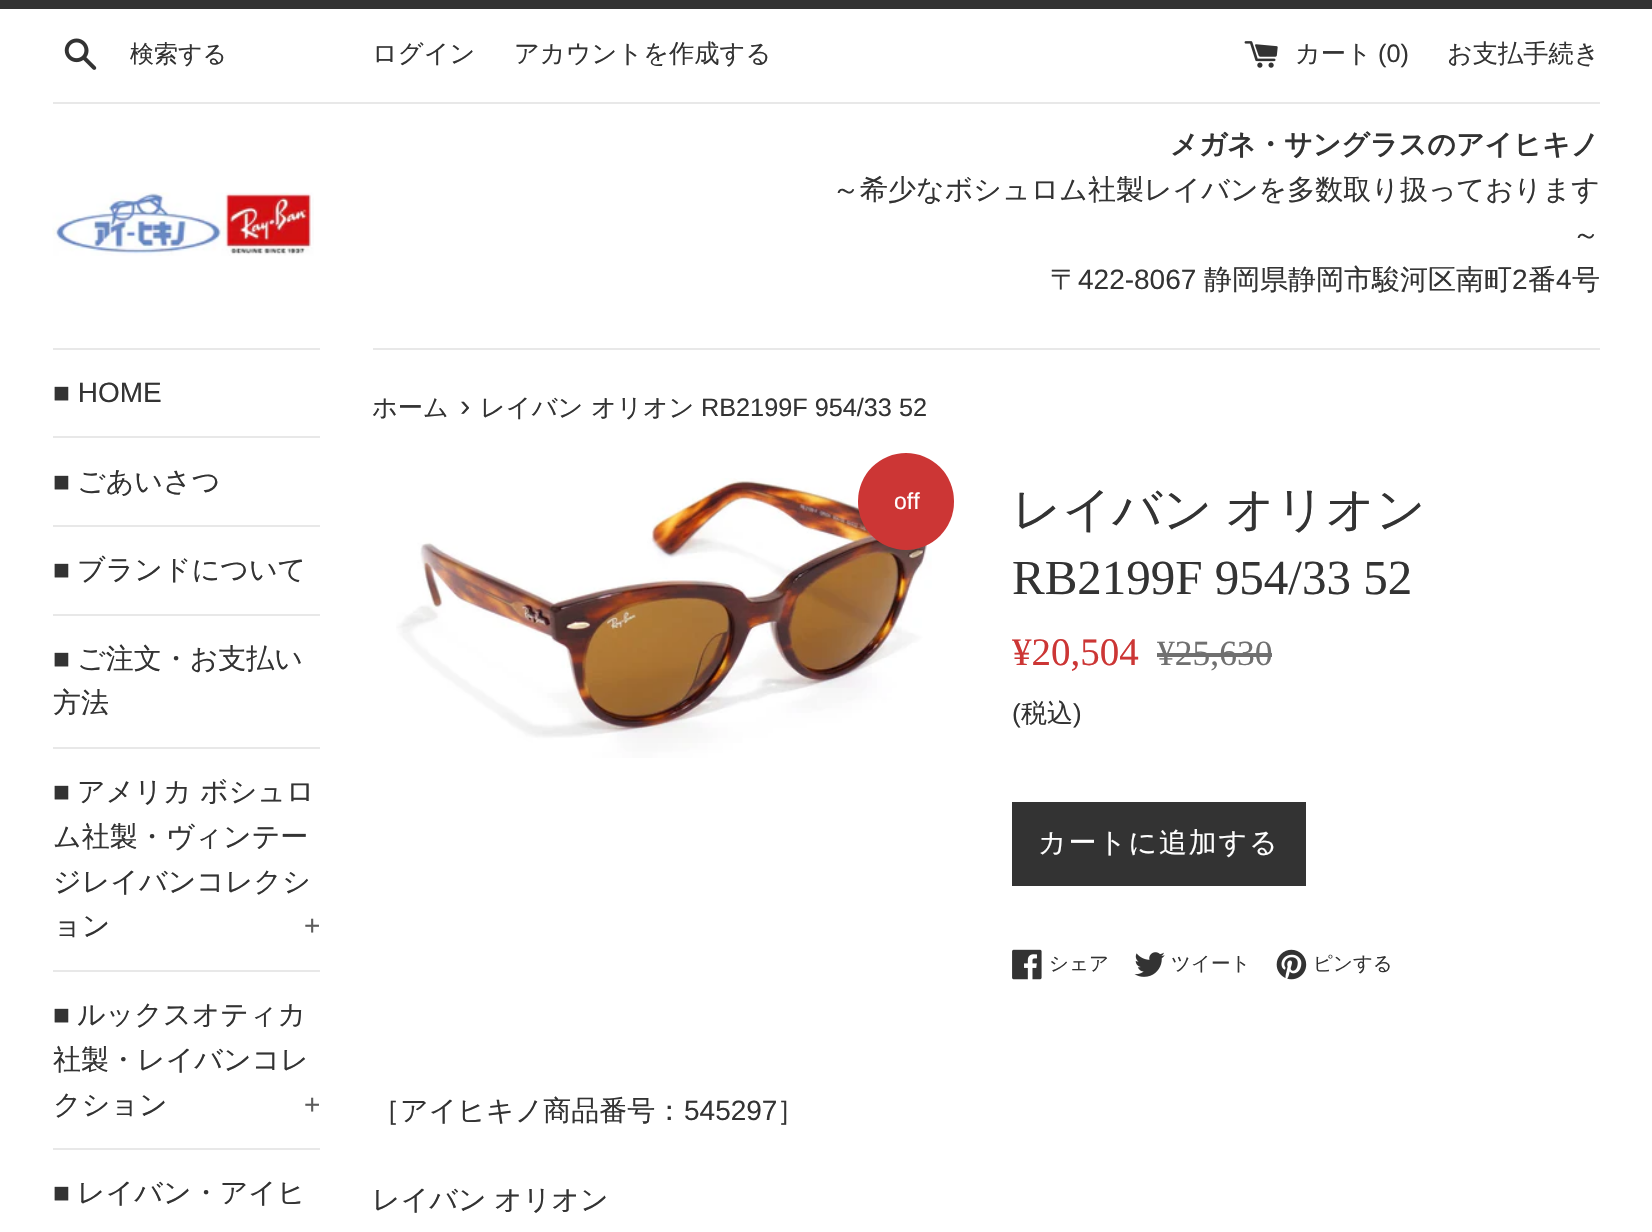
void draw(SkCanvas* c) {
SkPaint p;
p.setAntiAlias(true);
auto F=[&](const char* family, int weight, float size, bool italic = false){SkFontStyle style(weight, SkFontStyle::kNormal_Width,italic ? SkFontStyle::kItalic_Slant : SkFontStyle::kUpright_Slant);SkFont result(fontMgr->matchFamilyStyle(family, style), size);result.setSubpixel(true);return result;};
auto T=[&](const char* s, float x, float y, const SkFont& font){c->drawString(s, x, y, font, p);};
auto L=[&](const char* s, float x, float y, const SkFont& font, const SkPaint& ink, float letter, float word){std::vector<SkGlyphID> glyphs(font.countText(s, strlen(s), SkTextEncoding::kUTF8));std::vector<float> xs(glyphs.size());font.textToGlyphs(s, strlen(s), SkTextEncoding::kUTF8, glyphs);font.getXPos(glyphs, xs, x);float extra = 0;for (size_t i = 0; i < glyphs.size(); i++) {xs[i] += extra;extra += letter + word * (glyphs[i] == font.unicharToGlyph(' '));}c->drawTextBlob(SkTextBlob::MakeFromPosHGlyphs(glyphs, xs, y, font), 0, 0, ink);};
auto R=[&](float x, float y, float w, float h){c->drawRect(SkRect::MakeXYWH(x, y, w, h), p);};
auto Q=[&](float x, float y, float w, float h, float radius){c->drawRoundRect(SkRect::MakeXYWH(x, y, w, h), radius, radius, p);};
auto I=[&](const char* path, float x, float y, float w, float h){auto image = SkImages::DeferredFromEncodedData(SkData::MakeFromFileName(path));c->drawImageRect(image, SkRect::MakeXYWH(x, y, w, h), SkSamplingOptions());};
c->clear(0xffffffff);
p.setColor(0xff333333);
R(0,0,1652,9);
I("1.png",64,38,33,32);
auto f1 = F("WenQuanYi Zen Hei",500,24);
T("検索する",130,62,f1);
auto f2 = F("WenQuanYi Zen Hei",500,25.25);
T("ログイン",372,62,f2);
T("アカウントを作成する",514,62,f2);
I("2.png",1244,41,34,27);
T("カート",1295,62,f2);
auto f3 = F("Liberation Sans",400,25.25);
T("(0)",1378,62,f3);
T("お支払手続き",1447,62,f2);
p.setColor(0xffe8e8e8);
R(53,102,1547,2);
I("3.png",52,192,262,64);
auto f4 = F("WenQuanYi Zen Hei",700,28);
p.setColor(0xff333333);
T("メガネ・サングラスのアイヒキノ",1170,154,f4);
auto f5 = F("WenQuanYi Zen Hei",500,28);
T("～希少なボシュロム社製レイバンを多数取り扱っております",832,199,f5);
T("～",1572,244,f5);
T("〒",1050,289,f5);
auto f6 = F("Liberation Sans",400,28);
T("422-8067",1078,289,f6);
T("静岡県静岡市駿河区南町",1204,289,f5);
T("2",1512,289,f6);
T("番",1528,289,f5);
T("4",1556,289,f6);
T("号",1572,289,f5);
p.setColor(0xffe8e8e8);
R(53,348,267,2);
R(53,436,267,2);
p.setColor(0xff333333);
T("■ HOME",53,402,f6);
p.setColor(0xffe8e8e8);
R(53,525,267,2);
p.setColor(0xff333333);
T("■",53,491,f6);
T("ごあいさつ",77,491,f5);
p.setColor(0xffe8e8e8);
R(53,614,267,2);
p.setColor(0xff333333);
T("■",53,579,f6);
T("ブランドについて",77,579,f5);
p.setColor(0xffe8e8e8);
R(53,747,267,2);
p.setColor(0xff333333);
T("■",53,668,f6);
T("ご注文・お支払い",77,668,f5);
T("方法",53,712,f5);
p.setColor(0xffe8e8e8);
R(53,970,267,2);
p.setColor(0xff333333);
T("■",53,801,f6);
T("アメリカ ボシュロ",77,801,f5);
T("ム社製・ヴィンテー",53,846,f5);
T("ジレイバンコレクシ",53,891,f5);
T("ョン",53,935,f5);
p.setColor(0xff5c5c5c);
T("+",304,935,f6);
p.setColor(0xffe8e8e8);
R(53,1148,267,2);
p.setColor(0xff333333);
T("■",53,1024,f6);
T("ルックスオティカ",77,1024,f5);
T("社製・レイバンコレ",53,1069,f5);
T("クション",53,1114,f5);
p.setColor(0xff5c5c5c);
T("+",304,1114,f6);
p.setColor(0xff333333);
T("■",53,1202,f6);
T("レイバン・アイヒ",77,1202,f5);
p.setColor(0xffe8e8e8);
R(373,348,1227,2);
p.setColor(0xff333333);
T("ホーム",372,416,f2);
auto f7 = F("Liberation Sans",400,31);
T("›",460,416,f7);
T("レイバン",480,416,f2);
T("オリオン",591,416,f2);
T("RB2199F 954/33 52",701,416,f3);
I("4.png",396,478,536,280);
p.setColor(0xffcc3635);
Q(858,453,96,97,48);
auto f8 = F("Liberation Sans",400,23);
p.setColor(0xffffffff);
T("off",894,509,f8);
auto f9 = F("WenQuanYi Zen Hei",500,49);
p.setColor(0xff333333);
L("レイバン オリオン",1012,526,f9,p,0,-2);
auto f10 = F("Liberation Serif",400,49);
T("RB2199F 954/33 52",1012,594,f10);
auto f11 = F("Liberation Serif",400,39);
p.setColor(0xffcc3635);
T("¥20,504",1012,665,f11);
auto f12 = F("Liberation Serif",400,35.5);
p.setColor(0xff707070);
T("¥25,630",1157,665,f12);
R(1157,653,115,4);
auto f13 = F("Liberation Sans",400,26);
p.setColor(0xff333333);
T("(",1012,722,f13);
auto f14 = F("WenQuanYi Zen Hei",500,26);
T("税込",1021,722,f14);
T(")",1073,722,f13);
R(1012,802,294,84);
p.setColor(0xffffffff);
L("カートに追加する",1038,852,f5,p,1.75,0);
I("5.png",1012,949,30,31);
auto f15 = F("WenQuanYi Zen Hei",500,19.5);
p.setColor(0xff333333);
T("シェア",1049,970,f15);
I("6.png",1134,952,31,25);
T("ツイート",1171,970,f15);
I("7.png",1276,949,31,31);
T("ピンする",1313,970,f15);
T("［アイヒキノ商品番号：",372,1120,f5);
T("545297",684,1120,f6);
T("］",777,1120,f5);
L("レイバン オリオン",372,1209,f5,p,0,-1);
}
